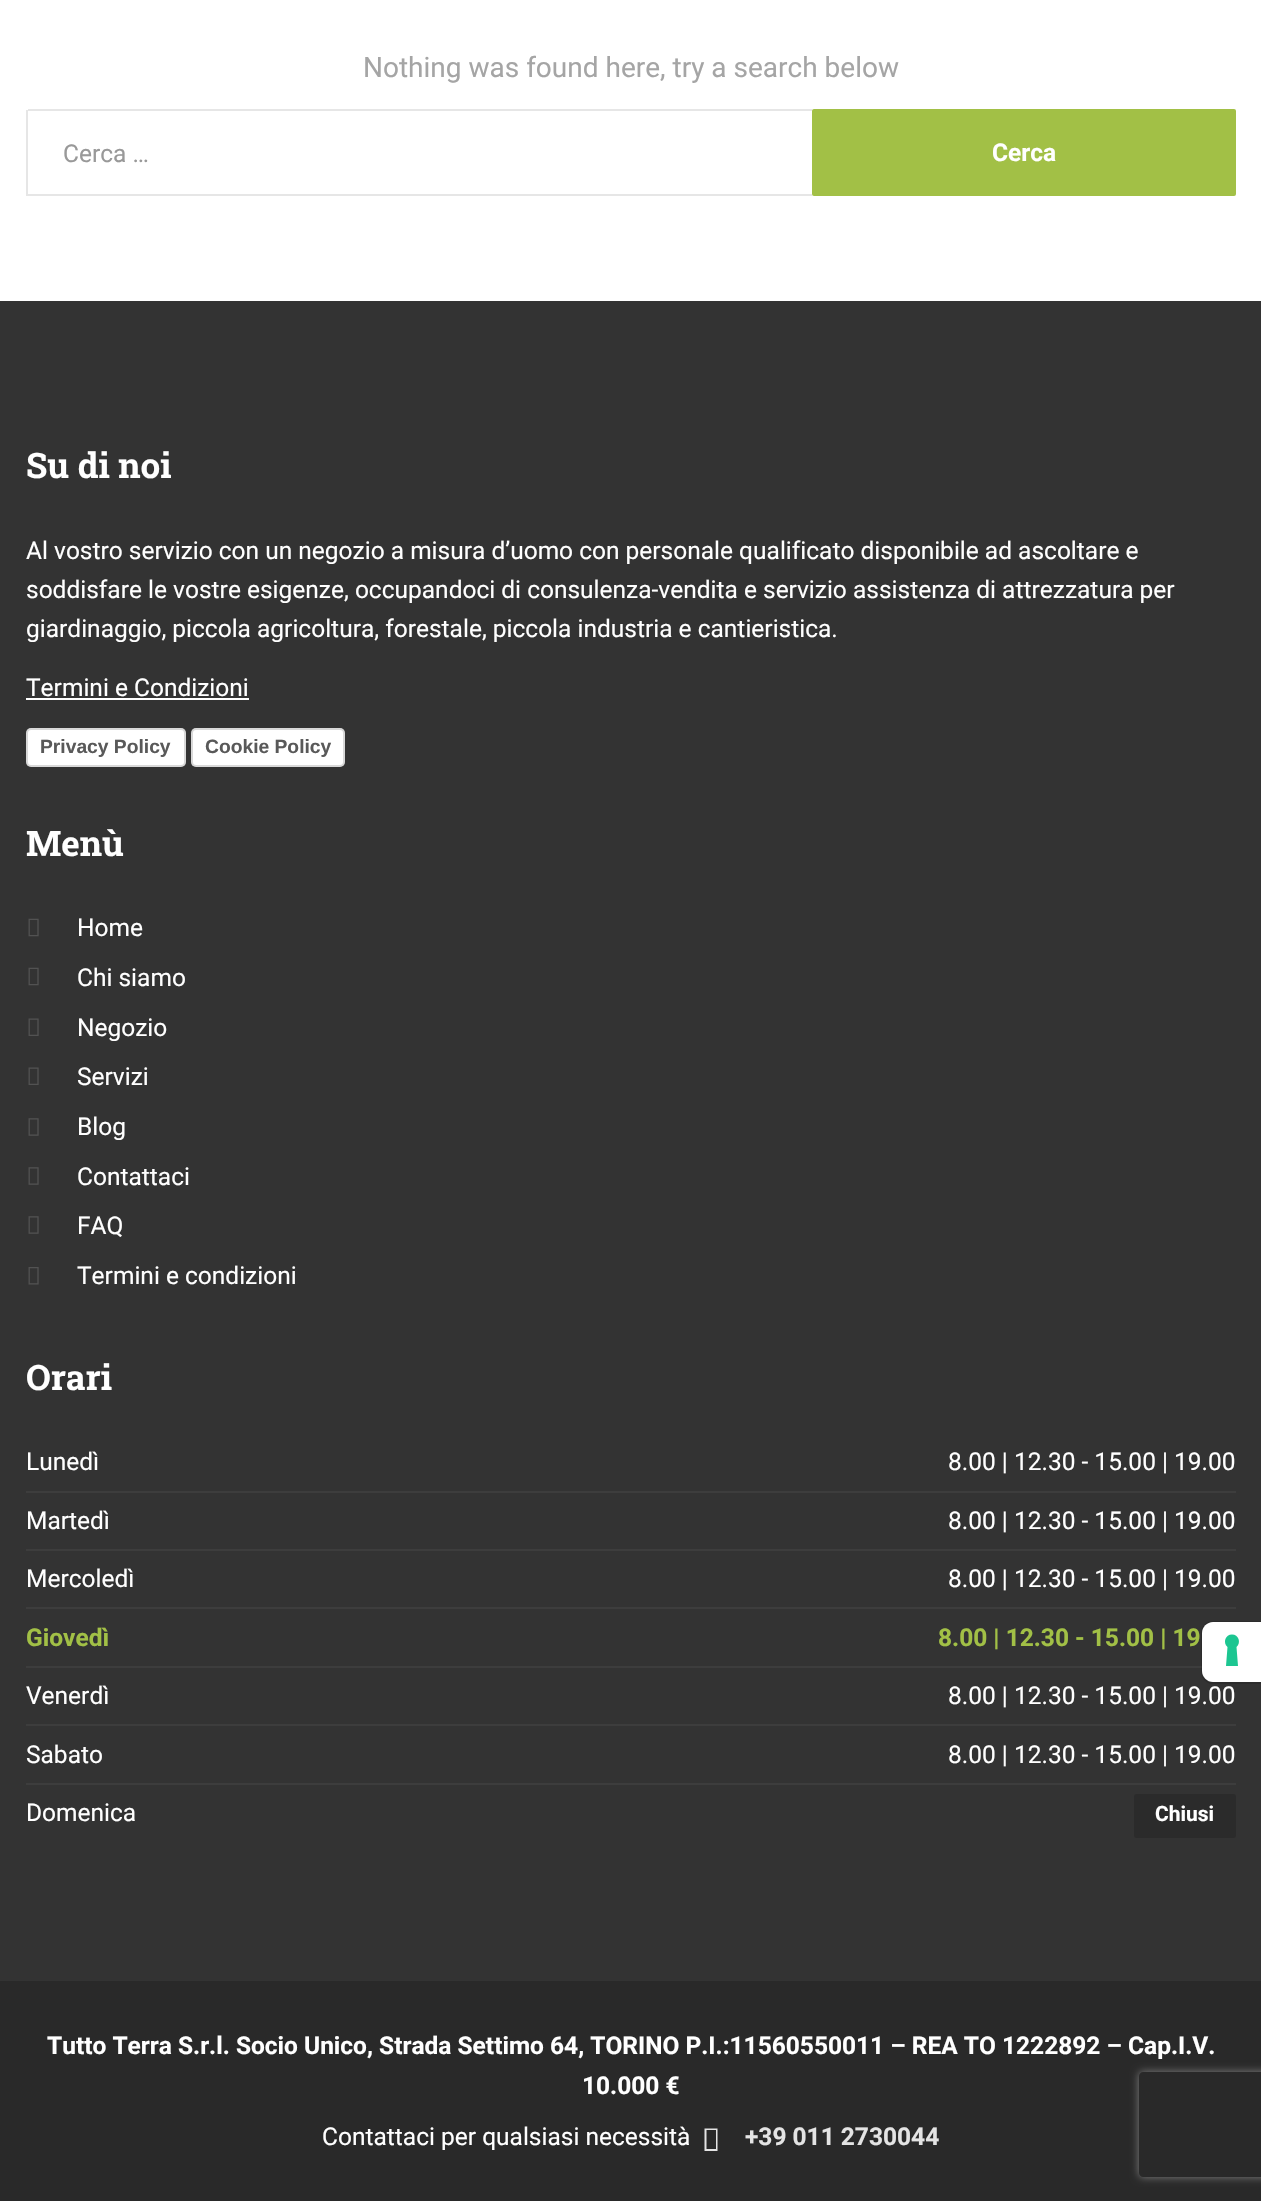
void draw(SkCanvas* c) {
SkPaint p;
p.setAntiAlias(true);
auto F=[&](const char* family, int weight, float size, bool italic = false){SkFontStyle style(weight, SkFontStyle::kNormal_Width,italic ? SkFontStyle::kItalic_Slant : SkFontStyle::kUpright_Slant);SkFont result(fontMgr->matchFamilyStyle(family, style), size);result.setSubpixel(true);return result;};
auto T=[&](const char* s, float x, float y, const SkFont& font){c->drawString(s, x, y, font, p);};
auto R=[&](float x, float y, float w, float h){c->drawRect(SkRect::MakeXYWH(x, y, w, h), p);};
auto Q=[&](float x, float y, float w, float h, float radius){c->drawRoundRect(SkRect::MakeXYWH(x, y, w, h), radius, radius, p);};
auto I=[&](const char* path, float x, float y, float w, float h){auto image = SkImages::DeferredFromEncodedData(SkData::MakeFromFileName(path));c->drawImageRect(image, SkRect::MakeXYWH(x, y, w, h), SkSamplingOptions());};
auto P=[&](const char* data, bool evenOdd = false){SkPath result = *SkParsePath::FromSVGString(data);if (evenOdd) result.setFillType(SkPathFillType::kEvenOdd);return result;};
c->clear(0xffffffff);
auto f1 = F("Roboto",400,28);
p.setColor(0xffa5a5a5);
T("Nothing was found here, try a search below",363,77,f1);
p.setColor(0xffe6e6e6);
R(28,109,784,2);
R(28,194,784,2);
R(26,110,2,86);
auto f2 = F("Roboto",400,24.5);
p.setColor(0xff999999);
T("Cerca …",63,162,f2);
p.setColor(0xffa2c046);
Q(812,109,424,87,2);
auto f3 = F("Roboto",700,24.5);
p.setColor(0xffffffff);
T("Cerca",992,161,f3);
p.setColor(0xff333333);
R(0,301,1261,1680);
auto f4 = F("Roboto Slab",700,35);
p.setColor(0xffffffff);
T("Su di noi",26,478,f4);
T("Al vostro servizio con un negozio a misura d’uomo con personale qualificato disponibile ad ascoltare e",26,559,f2);
T("soddisfare le vostre esigenze, occupandoci di consulenza-vendita e servizio assistenza di attrezzatura per",26,598,f2);
T("giardinaggio, piccola agricoltura, forestale, piccola industria e cantieristica.",26,637,f2);
T("Termini e Condizioni",26,696,f2);
R(26,698,223,2);
Q(26,728,160,39,5);
p.setStroke(true);
p.setStrokeWidth(2);
p.setColor(0x26000000);
c->drawRoundRect(SkRect::MakeXYWH(27,729,158,37),4,4,p);
auto f5 = F("Liberation Sans",700,19.25);
p.setStroke(false);
p.setColor(0xff595959);
T("Privacy Policy",40,753,f5);
p.setColor(0xffffffff);
Q(191,728,154,39,5);
p.setStroke(true);
p.setColor(0x26000000);
c->drawRoundRect(SkRect::MakeXYWH(192,729,152,37),4,4,p);
p.setStroke(false);
p.setColor(0xff595959);
T("Cookie Policy",205,753,f5);
p.setColor(0xffffffff);
T("Menù",26,856,f4);
I("1.png",28,918,11,19);
T("Home",77,936,f2);
I("1.png",28,967,11,19);
T("Chi siamo",77,986,f2);
I("2.png",28,1018,11,18);
T("Negozio",77,1036,f2);
I("2.png",28,1067,11,18);
T("Servizi",77,1085,f2);
I("3.png",28,1118,11,18);
T("Blog",77,1135,f2);
I("3.png",28,1167,11,18);
T("Contattaci",77,1185,f2);
I("3.png",28,1216,11,18);
T("FAQ",77,1234,f2);
I("4.png",28,1267,11,18);
T("Termini e condizioni",77,1284,f2);
T("Orari",26,1390,f4);
p.setColor(0xff3d3d3d);
R(26,1491,1210,2);
p.setColor(0xffffffff);
T("Lunedì",26,1470,f2);
T("8.00 | 12.30 - 15.00 | 19.00",948,1470,f2);
p.setColor(0xff3d3d3d);
R(26,1549,1210,2);
p.setColor(0xffffffff);
T("Martedì",26,1529,f2);
T("8.00 | 12.30 - 15.00 | 19.00",948,1529,f2);
p.setColor(0xff3d3d3d);
R(26,1607,1210,2);
p.setColor(0xffffffff);
T("Mercoledì",26,1587,f2);
T("8.00 | 12.30 - 15.00 | 19.00",948,1587,f2);
p.setColor(0xff3d3d3d);
R(26,1666,1176,2);
p.setColor(0xffa2c046);
T("Giovedì",26,1646,f3);
T("8.00 | 12.30 - 15.00 | 19",938,1646,f3);
p.setColor(0xff3d3d3d);
R(26,1724,1210,2);
p.setColor(0xffffffff);
T("Venerdì",26,1704,f2);
T("8.00 | 12.30 - 15.00 | 19.00",948,1704,f2);
p.setColor(0xff3d3d3d);
R(26,1783,1210,2);
p.setColor(0xffffffff);
T("Sabato",26,1763,f2);
T("8.00 | 12.30 - 15.00 | 19.00",948,1763,f2);
T("Domenica",26,1821,f2);
p.setColor(0xff2b2b2b);
Q(1134,1794,102,44,2);
auto f6 = F("Roboto",700,21);
p.setColor(0xffffffff);
T("Chiusi",1155,1821,f6);
p.setColor(0xff292929);
R(0,1981,1261,220);
p.setColor(0xffffffff);
T("Tutto Terra S.r.l. Socio Unico, Strada Settimo 64, TORINO P.I.:11560550011 – REA TO 1222892 – Cap.I.V.",47,2054,f3);
T("10.000 €",582,2094,f3);
T("Contattaci per qualsiasi necessità",322,2145,f2);
p.setColor(0xffe4e4e4);
c->drawPath(P("M704.5 2151v-22.5h13v22.5zm2-2h9.5v-19h-9.5z"),p);
T("+39 011 2730044",745,2145,f3);
p.setStroke(true);
p.setColor(0x26000000);
c->drawPath(P("M1213 1622h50v61h-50c-6 0-11-5-11-11v-39c0-6 5-11 11-11z"),p);
p.setStroke(false);
p.setColor(0xffffffff);
c->drawPath(P("M1213 1622h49v60h-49c-6 0-11-5-11-11v-38c0-6 5-11 11-11z"),p);
p.setColor(0xff1cc691);
c->drawPath(P("M1232 1634.5c6.5 0 9.5 8 4.5 12.5l1.5 19h-12l1.5-19c-5-4.5-2-12.5 4.5-12.5z",true),p);
c->save();
c->clipPath(P("M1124 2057h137v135h-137zm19 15h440c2 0 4 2 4 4v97c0 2-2 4-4 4h-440c-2 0-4-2-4-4v-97c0-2 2-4 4-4z",true),true);
p.setColor(0xff808080);
p.setMaskFilter(SkMaskFilter::MakeBlur(kNormal_SkBlurStyle, 4.5));
c->drawRoundRect(SkRect::MakeXYWH(1139,2072,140,105),4,4,p);
p.setMaskFilter(nullptr);
c->restore();
}
